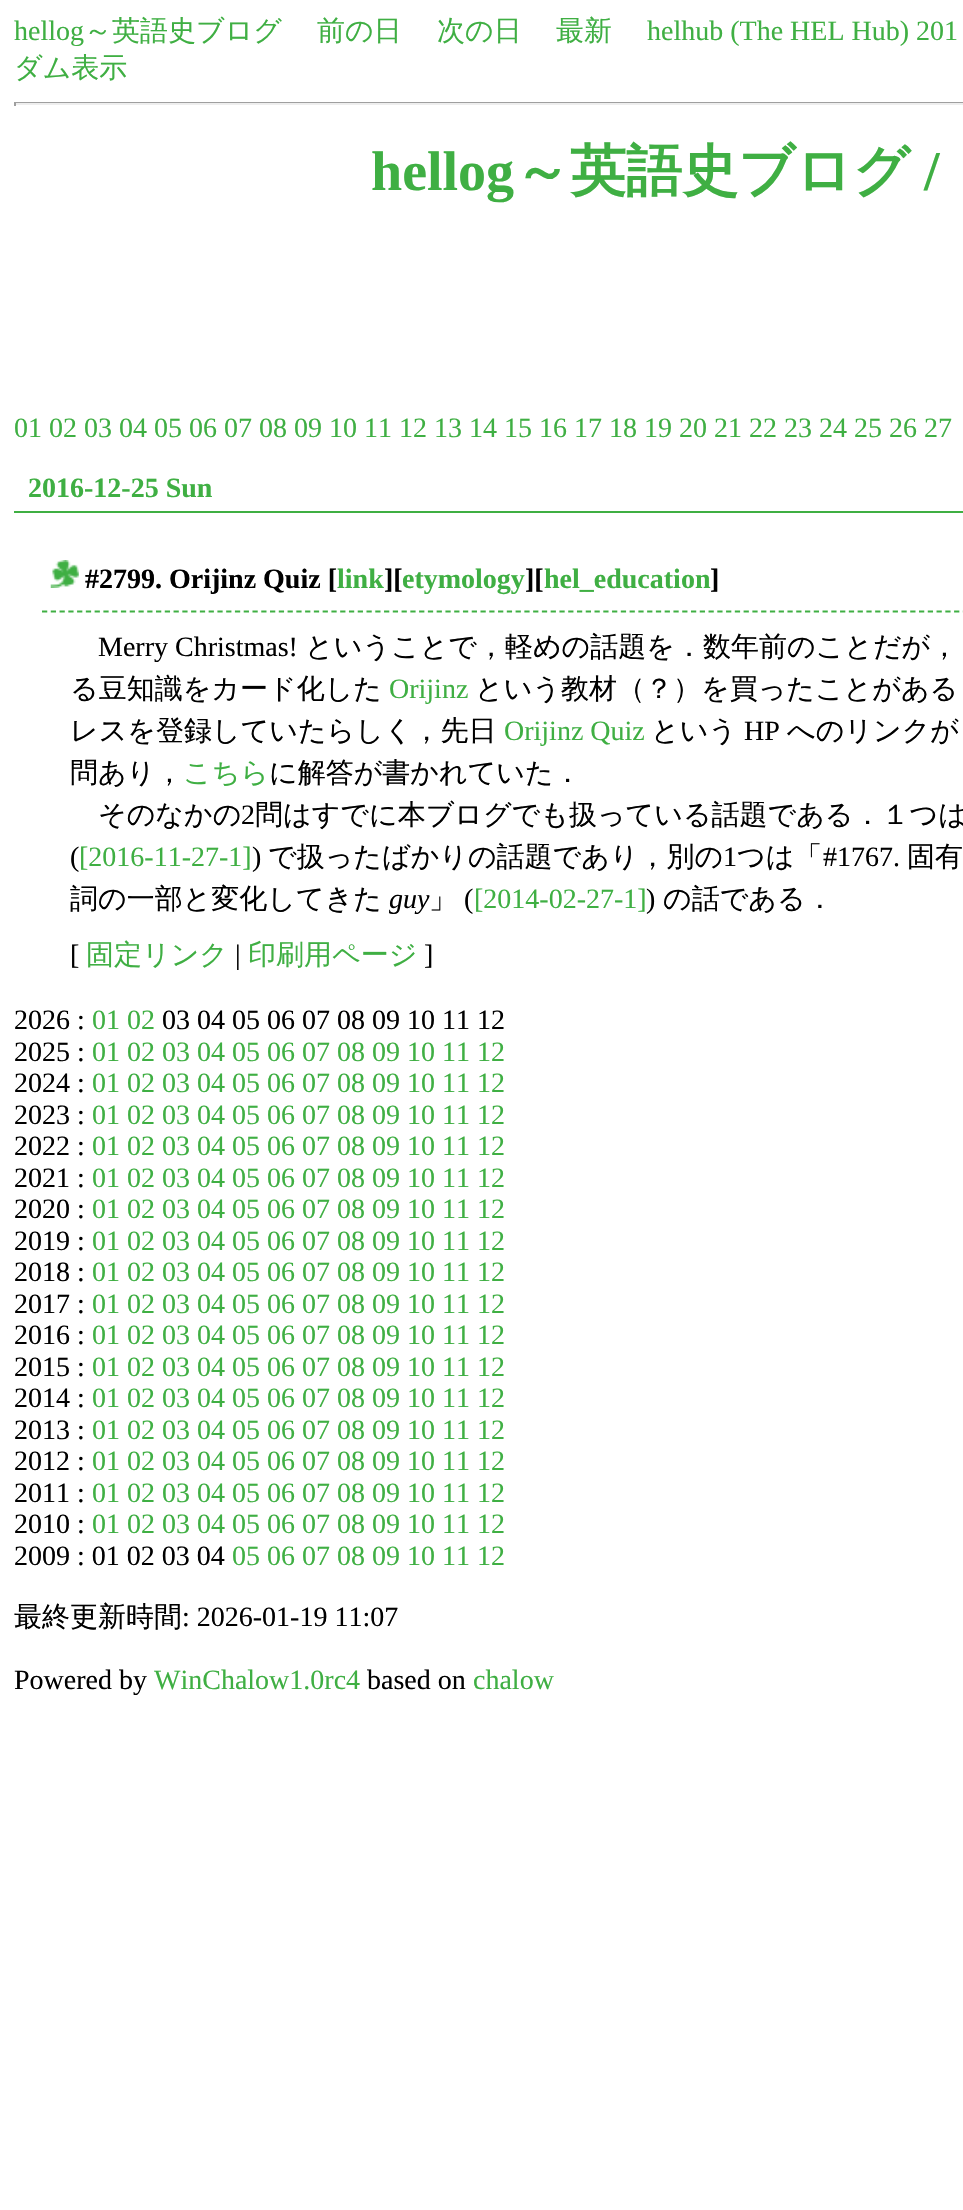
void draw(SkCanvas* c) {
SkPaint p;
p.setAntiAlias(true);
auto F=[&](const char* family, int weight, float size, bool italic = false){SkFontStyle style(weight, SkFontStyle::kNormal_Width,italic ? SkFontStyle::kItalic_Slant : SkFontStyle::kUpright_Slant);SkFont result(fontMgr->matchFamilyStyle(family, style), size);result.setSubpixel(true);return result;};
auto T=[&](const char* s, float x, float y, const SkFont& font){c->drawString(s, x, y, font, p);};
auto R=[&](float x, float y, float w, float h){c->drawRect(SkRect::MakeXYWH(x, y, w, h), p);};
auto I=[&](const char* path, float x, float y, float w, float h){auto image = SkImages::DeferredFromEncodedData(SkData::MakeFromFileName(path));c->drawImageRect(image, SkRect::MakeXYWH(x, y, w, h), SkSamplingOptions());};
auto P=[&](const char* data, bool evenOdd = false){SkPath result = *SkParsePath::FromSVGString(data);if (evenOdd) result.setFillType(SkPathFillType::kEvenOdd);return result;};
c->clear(0xffffffff);
auto f1 = F("Liberation Serif",400,28);
p.setColor(0xff3faf43);
T("hellog",14,40,f1);
auto f2 = F("WenQuanYi Zen Hei",500,28);
T("～英語史ブログ",84,40,f2);
T("前の日",317,40,f2);
T("次の日",437,40,f2);
T("最新",556,40,f2);
T("helhub (The HEL Hub) 201",647,40,f1);
T("ダム表示",14,77,f2);
p.setColor(0xff9f9f9f);
R(14,102,949,1);
p.setColor(0xffeeeeee);
R(14,103,949,2);
p.setColor(0xff9f9f9f);
R(14,102,2,4);
auto f3 = F("Liberation Serif",700,56);
p.setColor(0xff3faf43);
T("hellog",371,190,f3);
auto f4 = F("WenQuanYi Zen Hei",700,56);
T("～英語史ブログ",514,190,f4);
T("/",924,190,f3);
T("01 02 03 04 05 06 07 08 09 10 11 12 13 14 15 16 17 18 19 20 21 22 23 24 25 26 27",14,437,f1);
R(14,511,949,2);
auto f5 = F("Liberation Serif",700,28);
T("2016-12-25 Sun",28,497,f5);
p.setStroke(true);
p.setStrokeWidth(1.8);
p.setPathEffect(SkDashPathEffect::Make({{5.25f,3.52f}}, 0));
c->drawPath(P("M42 611.5h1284.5"),p);
p.setPathEffect(nullptr);
I("1.png",50,560,29,28);
p.setStroke(false);
p.setColor(0xff000000);
T("#2799. Orijinz Quiz [",85,588,f5);
p.setColor(0xff3faf43);
T("link",337,588,f5);
p.setColor(0xff000000);
T("][",384,588,f5);
p.setColor(0xff3faf43);
T("etymology",402,588,f5);
p.setColor(0xff000000);
T("][",525,588,f5);
p.setColor(0xff3faf43);
T("hel_education",544,588,f5);
p.setColor(0xff000000);
T("]",710,588,f5);
T("Merry Christmas!",98,656,f1);
T("ということで，軽めの話題を．数年前のことだが，",305,656,f2);
T("る豆知識をカード化した",70,698,f2);
p.setColor(0xff3faf43);
T("Orijinz",389,698,f1);
p.setColor(0xff000000);
T("という教材（？）を買ったことがある",475,698,f2);
T("レスを登録していたらしく，先日",70,740,f2);
p.setColor(0xff3faf43);
T("Orijinz Quiz",504,740,f1);
p.setColor(0xff000000);
T("という",651,740,f2);
T("HP",744,740,f1);
T("へのリンクが",787,740,f2);
T("問あり，",70,782,f2);
p.setColor(0xff3faf43);
T("こちら",183,782,f2);
p.setColor(0xff000000);
T("に解答が書かれていた．",269,782,f2);
T("そのなかの",98,824,f2);
T("2",241,824,f1);
T("問はすでに本ブログでも扱っている話題である．１つは",255,824,f2);
T("(",70,866,f1);
p.setColor(0xff3faf43);
T("[2016-11-27-1]",79,866,f1);
p.setColor(0xff000000);
T(")",252,866,f1);
T("で扱ったばかりの話題であり，別の",268,866,f2);
T("1",723,866,f1);
T("つは「",737,866,f2);
T("#1767.",823,866,f1);
T("固有",907,866,f2);
T("詞の一部と変化してきた",70,908,f2);
auto f6 = F("Liberation Serif",400,28,true);
T("guy",389,908,f6);
T("」",429,908,f2);
T("(",464,908,f1);
p.setColor(0xff3faf43);
T("[2014-02-27-1]",474,908,f1);
p.setColor(0xff000000);
T(")",646,908,f1);
T("の話である．",663,908,f2);
T("[",70,964,f1);
p.setColor(0xff3faf43);
T("固定リンク",86,964,f2);
p.setColor(0xff000000);
T("|",235,964,f1);
p.setColor(0xff3faf43);
T("印刷用ページ",248,964,f2);
p.setColor(0xff000000);
T("]",424,964,f1);
T("2026 :",14,1029,f1);
p.setColor(0xff3faf43);
T("01 02",92,1029,f1);
p.setColor(0xff000000);
T("03 04 05 06 07 08 09 10 11 12",162,1029,f1);
T("2025 :",14,1061,f1);
p.setColor(0xff3faf43);
T("01 02 03 04 05 06 07 08 09 10 11 12",92,1061,f1);
p.setColor(0xff000000);
T("2024 :",14,1092,f1);
p.setColor(0xff3faf43);
T("01 02 03 04 05 06 07 08 09 10 11 12",92,1092,f1);
p.setColor(0xff000000);
T("2023 :",14,1124,f1);
p.setColor(0xff3faf43);
T("01 02 03 04 05 06 07 08 09 10 11 12",92,1124,f1);
p.setColor(0xff000000);
T("2022 :",14,1155,f1);
p.setColor(0xff3faf43);
T("01 02 03 04 05 06 07 08 09 10 11 12",92,1155,f1);
p.setColor(0xff000000);
T("2021 :",14,1187,f1);
p.setColor(0xff3faf43);
T("01 02 03 04 05 06 07 08 09 10 11 12",92,1187,f1);
p.setColor(0xff000000);
T("2020 :",14,1218,f1);
p.setColor(0xff3faf43);
T("01 02 03 04 05 06 07 08 09 10 11 12",92,1218,f1);
p.setColor(0xff000000);
T("2019 :",14,1250,f1);
p.setColor(0xff3faf43);
T("01 02 03 04 05 06 07 08 09 10 11 12",92,1250,f1);
p.setColor(0xff000000);
T("2018 :",14,1281,f1);
p.setColor(0xff3faf43);
T("01 02 03 04 05 06 07 08 09 10 11 12",92,1281,f1);
p.setColor(0xff000000);
T("2017 :",14,1313,f1);
p.setColor(0xff3faf43);
T("01 02 03 04 05 06 07 08 09 10 11 12",92,1313,f1);
p.setColor(0xff000000);
T("2016 :",14,1344,f1);
p.setColor(0xff3faf43);
T("01 02 03 04 05 06 07 08 09 10 11 12",92,1344,f1);
p.setColor(0xff000000);
T("2015 :",14,1376,f1);
p.setColor(0xff3faf43);
T("01 02 03 04 05 06 07 08 09 10 11 12",92,1376,f1);
p.setColor(0xff000000);
T("2014 :",14,1407,f1);
p.setColor(0xff3faf43);
T("01 02 03 04 05 06 07 08 09 10 11 12",92,1407,f1);
p.setColor(0xff000000);
T("2013 :",14,1439,f1);
p.setColor(0xff3faf43);
T("01 02 03 04 05 06 07 08 09 10 11 12",92,1439,f1);
p.setColor(0xff000000);
T("2012 :",14,1470,f1);
p.setColor(0xff3faf43);
T("01 02 03 04 05 06 07 08 09 10 11 12",92,1470,f1);
p.setColor(0xff000000);
T("2011 :",14,1502,f1);
p.setColor(0xff3faf43);
T("01 02 03 04 05 06 07 08 09 10 11 12",92,1502,f1);
p.setColor(0xff000000);
T("2010 :",14,1533,f1);
p.setColor(0xff3faf43);
T("01 02 03 04 05 06 07 08 09 10 11 12",92,1533,f1);
p.setColor(0xff000000);
T("2009 : 01 02 03 04",14,1565,f1);
p.setColor(0xff3faf43);
T("05 06 07 08 09 10 11 12",232,1565,f1);
p.setColor(0xff000000);
T("最終更新時間",14,1626,f2);
T(": 2026-01-19 11:07",182,1626,f1);
T("Powered by",14,1689,f1);
p.setColor(0xff3faf43);
T("WinChalow1.0rc4",154,1689,f1);
p.setColor(0xff000000);
T("based on",367,1689,f1);
p.setColor(0xff3faf43);
T("chalow",473,1689,f1);
}
